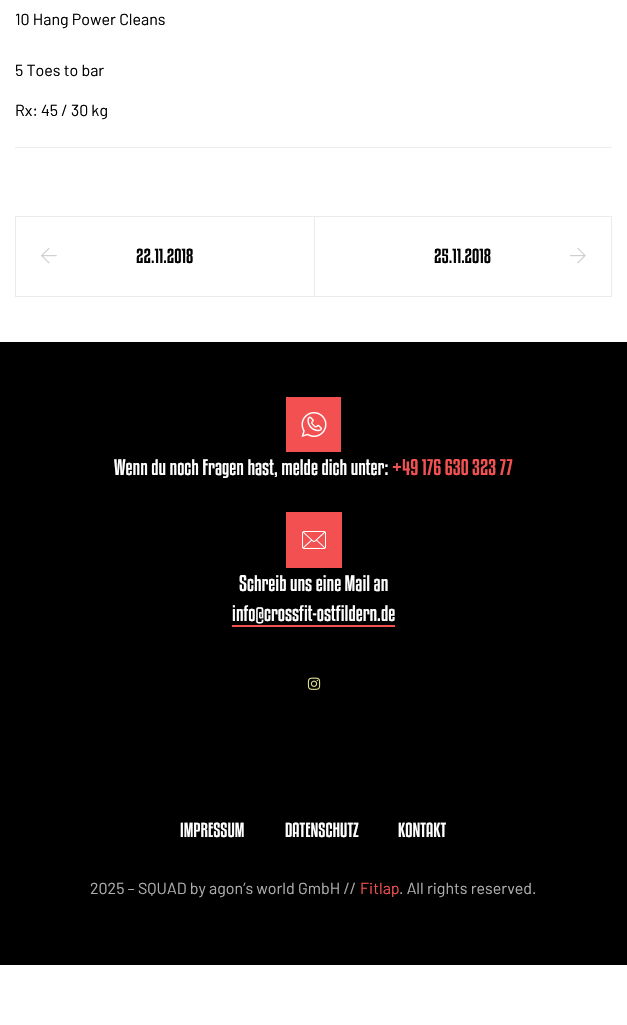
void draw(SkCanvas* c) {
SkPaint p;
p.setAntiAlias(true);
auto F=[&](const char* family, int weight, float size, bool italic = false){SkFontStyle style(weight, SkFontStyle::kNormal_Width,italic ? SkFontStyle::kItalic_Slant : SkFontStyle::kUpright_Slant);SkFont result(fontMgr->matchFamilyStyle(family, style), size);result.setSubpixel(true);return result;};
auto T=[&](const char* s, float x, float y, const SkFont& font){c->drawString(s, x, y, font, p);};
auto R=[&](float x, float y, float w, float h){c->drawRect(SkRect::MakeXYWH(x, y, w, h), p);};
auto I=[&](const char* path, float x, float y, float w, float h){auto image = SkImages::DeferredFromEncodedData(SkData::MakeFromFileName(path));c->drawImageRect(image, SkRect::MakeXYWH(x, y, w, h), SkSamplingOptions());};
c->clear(0xffffffff);
p.setColor(0xffebebeb);
R(15,147,597,1);
auto f1 = F("Barlow",400,16);
p.setColor(0xff020101);
T("10 Hang Power Cleans",15,25,f1);
T("5 Toes to bar",15,76,f1);
T("Rx: 45 / 30 kg",15,116,f1);
p.setStroke(true);
p.setStrokeWidth(1);
p.setColor(0xffebebeb);
c->drawRect(SkRect::MakeXYWH(15.5,216.5,299,80),p);
I("1.png",41,247,16,17);
auto f2 = F("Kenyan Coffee",400,18);
p.setStroke(false);
p.setColor(0xff020101);
T("22.11.2018",136,263,f2);
p.setStroke(true);
p.setColor(0xffebebeb);
c->drawRect(SkRect::MakeXYWH(314.5,216.5,297,80),p);
p.setStroke(false);
p.setColor(0xff020101);
T("25.11.2018",434,263,f2);
I("2.png",570,248,16,16);
p.setColor(0xff000000);
R(0,342,627,623);
p.setColor(0xfff35151);
R(286,397,55,55);
I("3.png",301,412,26,25);
auto f3 = F("Kenyan Coffee",400,20);
p.setColor(0xffffffff);
T("Wenn du noch Fragen hast, melde dich unter:",114,475,f3);
p.setColor(0xfff35151);
T("+49 176 630 323 77",392,475,f3);
R(286,512,56,56);
I("4.png",302,531,24,18);
p.setColor(0xffffffff);
T("Schreib uns eine Mail an",239,591,f3);
T("info@crossfit-ostfildern.de",232,621,f3);
p.setColor(0xfff35151);
R(232,625,163,2);
I("5.png",307,677,14,13);
p.setColor(0xffffffff);
T("IMPRESSUM",180,837,f2);
T("DATENSCHUTZ",285,837,f2);
T("KONTAKT",398,837,f2);
p.setColor(0xffaeaeae);
T("2025 – SQUAD by agon’s world GmbH //",90,894,f1);
p.setColor(0xfff35151);
T("Fitlap",360,894,f1);
p.setColor(0xffaeaeae);
T(". All rights reserved.",399,894,f1);
}
